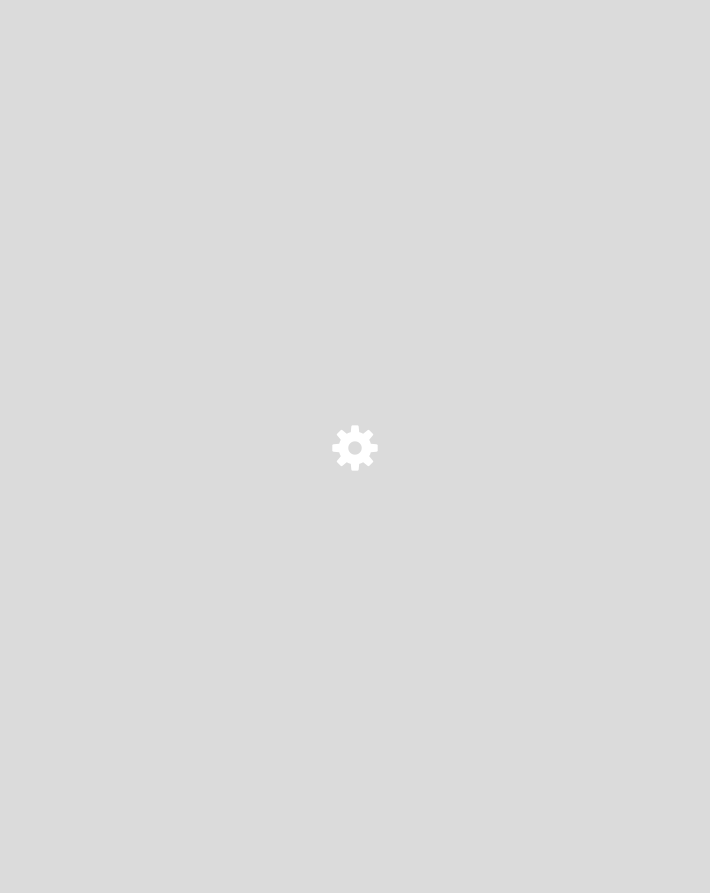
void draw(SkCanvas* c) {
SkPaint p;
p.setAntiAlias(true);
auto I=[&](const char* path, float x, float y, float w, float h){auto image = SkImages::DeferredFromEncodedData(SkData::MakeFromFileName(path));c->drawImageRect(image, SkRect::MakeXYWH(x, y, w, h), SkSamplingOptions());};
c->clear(0xffdbdbdb);
I("1.png",332,425,46,46);
}
